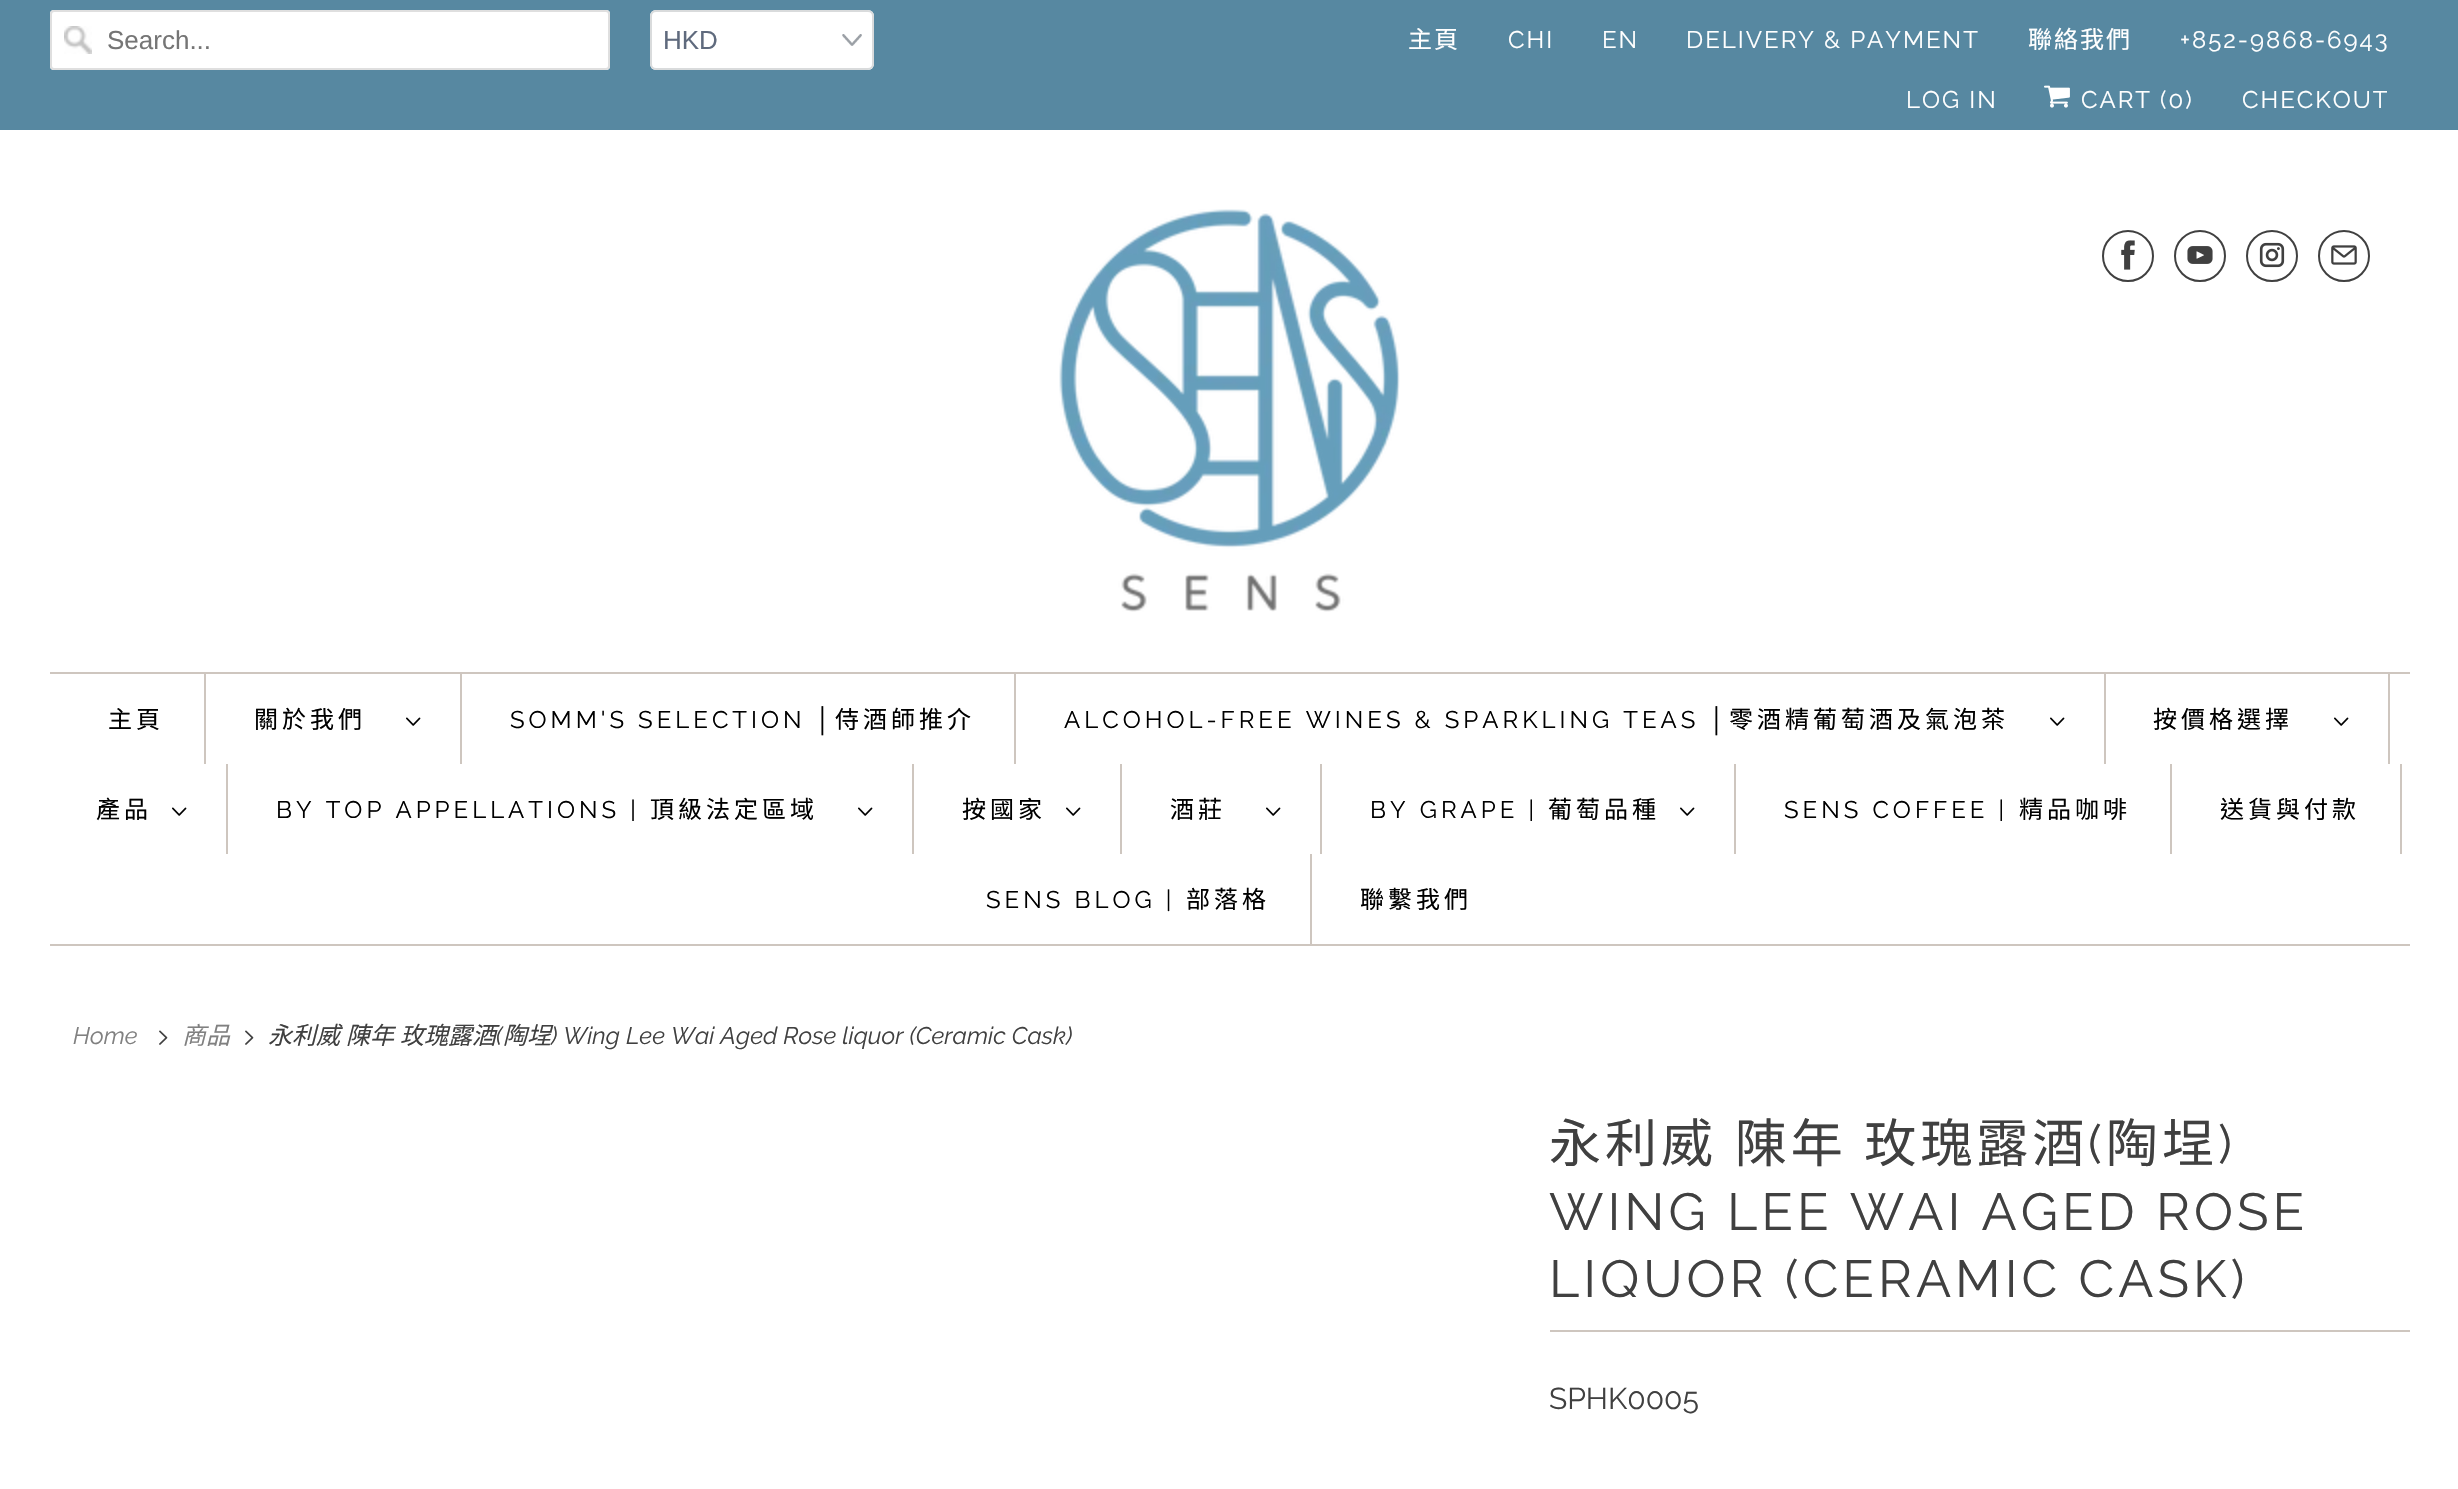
void draw(SkCanvas* c) {
SkPaint p;
p.setAntiAlias(true);
auto F=[&](const char* family, int weight, float size, bool italic = false){SkFontStyle style(weight, SkFontStyle::kNormal_Width,italic ? SkFontStyle::kItalic_Slant : SkFontStyle::kUpright_Slant);SkFont result(fontMgr->matchFamilyStyle(family, style), size);result.setSubpixel(true);return result;};
auto T=[&](const char* s, float x, float y, const SkFont& font){c->drawString(s, x, y, font, p);};
auto L=[&](const char* s, float x, float y, const SkFont& font, const SkPaint& ink, float letter, float word){std::vector<SkGlyphID> glyphs(font.countText(s, strlen(s), SkTextEncoding::kUTF8));std::vector<float> xs(glyphs.size());font.textToGlyphs(s, strlen(s), SkTextEncoding::kUTF8, glyphs);font.getXPos(glyphs, xs, x);float extra = 0;for (size_t i = 0; i < glyphs.size(); i++) {xs[i] += extra;extra += letter + word * (glyphs[i] == font.unicharToGlyph(' '));}c->drawTextBlob(SkTextBlob::MakeFromPosHGlyphs(glyphs, xs, y, font), 0, 0, ink);};
auto R=[&](float x, float y, float w, float h){c->drawRect(SkRect::MakeXYWH(x, y, w, h), p);};
auto Q=[&](float x, float y, float w, float h, float radius){c->drawRoundRect(SkRect::MakeXYWH(x, y, w, h), radius, radius, p);};
auto I=[&](const char* path, float x, float y, float w, float h){auto image = SkImages::DeferredFromEncodedData(SkData::MakeFromFileName(path));c->drawImageRect(image, SkRect::MakeXYWH(x, y, w, h), SkSamplingOptions());};
c->clear(0xffffffff);
p.setColor(0xff5788a1);
R(0,0,2458,130);
p.setColor(0xffffffff);
Q(50,10,560,60,4);
I("1.png",64,26,28,28);
p.setStroke(true);
p.setStrokeWidth(2);
p.setColor(0xffdfdfdf);
c->drawRoundRect(SkRect::MakeXYWH(51,11,558,58),3,3,p);
auto f1 = F("Liberation Sans",400,26);
p.setStroke(false);
p.setColor(0xff757575);
T("Search...",107,49,f1);
p.setColor(0xffffffff);
Q(650,10,224,60,6);
I("2.png",842,34,20,12);
p.setStroke(true);
p.setColor(0xffd9dbdc);
c->drawRoundRect(SkRect::MakeXYWH(651,11,222,58),5,5,p);
p.setStroke(false);
p.setColor(0xff5f6a7d);
T("HKD",663,49,f1);
auto f2 = F("Noto Sans CJK TC",400,24);
p.setColor(0xffffffff);
L("主頁",1408,48,f2,p,2,0);
auto f3 = F("Raleway",400,24);
L("CHI",1508,48,f3,p,2,0);
L("EN",1602,48,f3,p,2,0);
L("DELIVERY & PAYMENT",1686,48,f3,p,2,0);
L("聯絡我們",2028,48,f2,p,2,0);
L("+852-9868-6943",2180,48,f3,p,2,0);
L("LOG IN",1906,108,f3,p,2,0);
I("3.png",2044,85,26,23);
L("CART (0)",2081,108,f3,p,2,0);
L("CHECKOUT",2242,108,f3,p,2,0);
I("4.png",1059,209,341,403);
p.setStroke(true);
p.setColor(0xff404040);
c->drawCircle(2128,256,25,p);
I("5.png",2121,240,14,30);
c->drawCircle(2200,256,25,p);
I("6.png",2187,246,26,18);
c->drawCircle(2272,256,25,p);
I("7.png",2259,242,26,26);
c->drawCircle(2344,256,25,p);
I("8.png",2331,245,26,20);
p.setStroke(false);
p.setColor(0xffcec6bf);
R(50,672,2360,2);
R(50,944,2360,2);
R(204,674,2,90);
p.setColor(0xff000000);
L("主頁",108,728,f2,p,4,0);
p.setColor(0xffcec6bf);
R(460,674,2,90);
p.setColor(0xff000000);
L("關於我們",254,728,f2,p,4,0);
I("9.png",406,717,15,9);
p.setColor(0xffcec6bf);
R(1014,674,2,90);
p.setColor(0xff000000);
L("SOMM'S SELECTION",510,728,f3,p,4,0);
auto f4 = F("Liberation Sans",400,24);
L("│",816,728,f4,p,4,0);
L("侍酒師推介",835,728,f2,p,4,0);
p.setColor(0xffcec6bf);
R(2104,674,2,90);
p.setColor(0xff000000);
L("ALCOHOL-FREE WINES & SPARKLING TEAS",1064,728,f3,p,4,0);
L("│",1710,728,f4,p,4,0);
L("零酒精葡萄酒及氣泡茶",1729,728,f2,p,4,0);
I("9.png",2050,717,15,9);
p.setColor(0xffcec6bf);
R(2388,674,2,90);
p.setColor(0xff000000);
L("按價格選擇",2153,728,f2,p,4,0);
I("9.png",2334,717,15,9);
p.setColor(0xffcec6bf);
R(226,764,2,90);
p.setColor(0xff000000);
L("產品",96,818,f2,p,4,0);
I("9.png",172,807,15,9);
p.setColor(0xffcec6bf);
R(912,764,2,90);
p.setColor(0xff000000);
L("BY TOP APPELLATIONS |",276,818,f3,p,4,0);
L("頂級法定區域",650,818,f2,p,4,0);
I("9.png",858,807,15,9);
p.setColor(0xffcec6bf);
R(1120,764,2,90);
p.setColor(0xff000000);
L("按國家",962,818,f2,p,4,0);
I("9.png",1066,807,15,9);
p.setColor(0xffcec6bf);
R(1320,764,2,90);
p.setColor(0xff000000);
L("酒莊",1170,818,f2,p,4,0);
I("9.png",1266,807,15,9);
p.setColor(0xffcec6bf);
R(1734,764,2,90);
p.setColor(0xff000000);
L("BY GRAPE |",1370,818,f3,p,4,0);
L("葡萄品種",1548,818,f2,p,4,0);
I("9.png",1680,807,15,9);
p.setColor(0xffcec6bf);
R(2170,764,2,90);
p.setColor(0xff000000);
L("SENS COFFEE |",1784,818,f3,p,4,0);
L("精品咖啡",2019,818,f2,p,4,0);
p.setColor(0xffcec6bf);
R(2400,764,2,90);
p.setColor(0xff000000);
L("送貨與付款",2220,818,f2,p,4,0);
p.setColor(0xffcec6bf);
R(1310,854,2,90);
p.setColor(0xff000000);
L("SENS BLOG |",986,908,f3,p,4,0);
L("部落格",1186,908,f2,p,4,0);
L("聯繫我們",1360,908,f2,p,4,0);
auto f5 = F("Raleway",400,24,true);
p.setColor(0xff808080);
T("Home",73,1044,f5);
auto f6 = F("Noto Sans CJK TC",400,24,true);
T("商品",182,1044,f6);
p.setColor(0xff404040);
T("永利威",268,1044,f6);
T("陳年",346,1044,f6);
T("玫瑰露酒",400,1044,f6);
T("陶埕",503,1044,f6);
I("10.png",159,1030,9,15);
I("10.png",245,1030,9,15);
T("(",496,1044,f5);
T(") Wing Lee Wai Aged Rose liquor (Ceramic Cask)",551,1044,f5);
p.setColor(0xffcec6bf);
R(1550,1330,860,2);
auto f7 = F("Noto Sans CJK TC",400,52);
p.setColor(0xff404040);
L("永利威 陳年 玫瑰露酒",1549,1162,f7,p,4,2);
auto f8 = F("Raleway",400,52);
L("(",2088,1162,f8,p,4,0);
L("陶埕",2106,1162,f7,p,4,0);
L(")",2218,1162,f8,p,4,0);
L("WING LEE WAI AGED ROSE",1549,1230,f8,p,4,0);
L("LIQUOR (CERAMIC CASK)",1549,1297,f8,p,4,0);
auto f9 = F("Raleway",400,30);
T("SPHK0005",1549,1409,f9);
}
